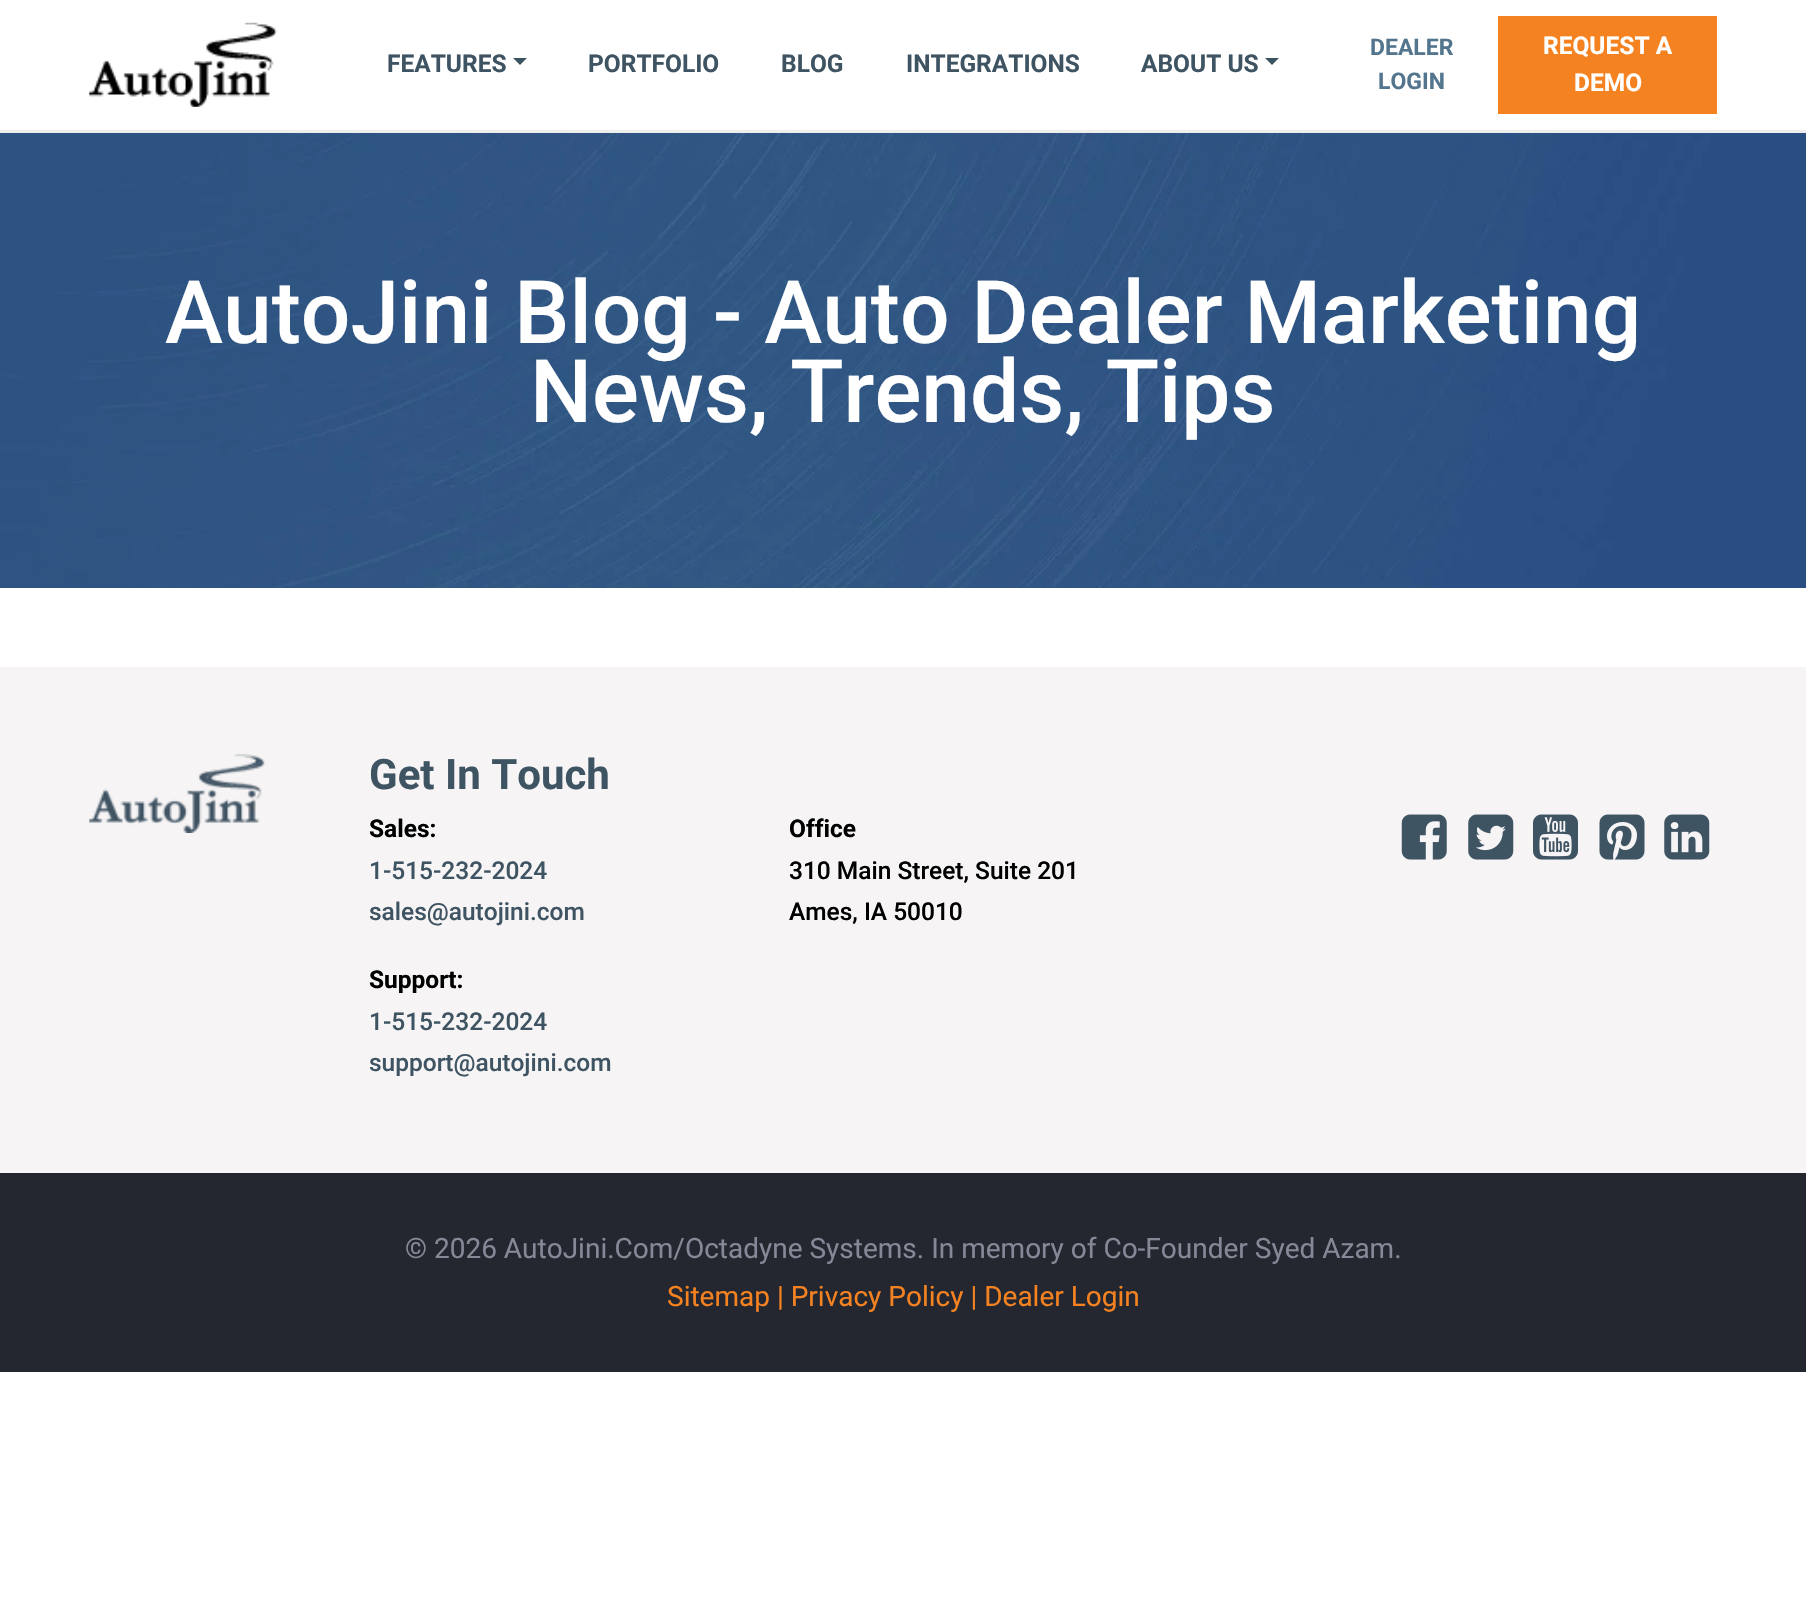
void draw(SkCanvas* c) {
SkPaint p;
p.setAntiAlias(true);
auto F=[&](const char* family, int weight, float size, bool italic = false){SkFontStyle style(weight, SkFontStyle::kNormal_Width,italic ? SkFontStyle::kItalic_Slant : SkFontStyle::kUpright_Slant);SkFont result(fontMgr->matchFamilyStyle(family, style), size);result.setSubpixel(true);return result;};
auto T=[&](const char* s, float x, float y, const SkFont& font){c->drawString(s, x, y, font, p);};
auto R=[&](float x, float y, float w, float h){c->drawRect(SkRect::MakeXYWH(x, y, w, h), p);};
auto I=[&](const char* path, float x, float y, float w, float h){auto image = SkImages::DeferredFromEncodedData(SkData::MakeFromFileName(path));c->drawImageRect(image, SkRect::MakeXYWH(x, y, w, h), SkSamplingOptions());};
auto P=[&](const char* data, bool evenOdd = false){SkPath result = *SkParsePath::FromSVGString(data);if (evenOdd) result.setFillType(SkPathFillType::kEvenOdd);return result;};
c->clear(0xffffffff);
p.setColor(0xffeeeeee);
R(0,130,1806,3);
I("1.png",89,22,188,85);
auto f1 = F("Roboto",700,24.5);
p.setColor(0xff3f5463);
T("FEATURES",387,72,f1);
c->drawPath(P("M513 58h14l-7 7z"),p);
T("PORTFOLIO",588,72,f1);
T("BLOG",781,72,f1);
T("INTEGRATIONS",906,72,f1);
T("ABOUT US",1141,72,f1);
c->drawPath(P("M1265 58h14l-7 7z"),p);
auto f2 = F("Roboto",700,23);
p.setColor(0xff53758e);
T("DEALER",1370,55,f2);
T("LOGIN",1378,89,f2);
p.setColor(0xfff58221);
R(1498,16,219,98);
p.setColor(0xffffffff);
T("REQUEST A",1543,54,f1);
T("DEMO",1574,91,f1);
I("2.png",0,133,1806,455);
auto f3 = F("Roboto",500,87.5);
T("AutoJini Blog - Auto Dealer Marketing",165,343,f3);
T("News, Trends, Tips",530,422,f3);
p.setColor(0xfff6f4f4);
R(0,667,1806,506);
I("3.png",89,754,176,79);
auto f4 = F("Roboto",700,42);
p.setColor(0xff3f5463);
T("Get In Touch",369,789,f4);
p.setColor(0xff000000);
T("Sales:",369,837,f1);
auto f5 = F("Roboto",500,24.5);
p.setColor(0xff3f5463);
T("1-515-232-2024",369,879,f5);
T("sales@autojini.com",369,920,f5);
p.setColor(0xff000000);
T("Support:",369,988,f1);
p.setColor(0xff3f5463);
T("1-515-232-2024",369,1030,f5);
T("support@autojini.com",369,1071,f5);
p.setColor(0xff000000);
T("Office",789,837,f1);
T("310 Main Street, Suite 201",789,879,f5);
T("Ames, IA 50010",789,920,f5);
I("4.png",1401,814,46,46);
I("5.png",1468,814,46,46);
I("6.png",1533,814,45,46);
I("7.png",1599,814,46,46);
I("8.png",1664,814,46,46);
p.setColor(0xff252730);
R(0,1173,1806,199);
auto f6 = F("Roboto",400,28);
p.setColor(0xff858897);
T("© 2026 AutoJini.Com/Octadyne Systems. In memory of Co-Founder Syed Azam.",405,1258,f6);
p.setColor(0xfff58221);
T("Sitemap | Privacy Policy | Dealer Login",667,1306,f6);
}
